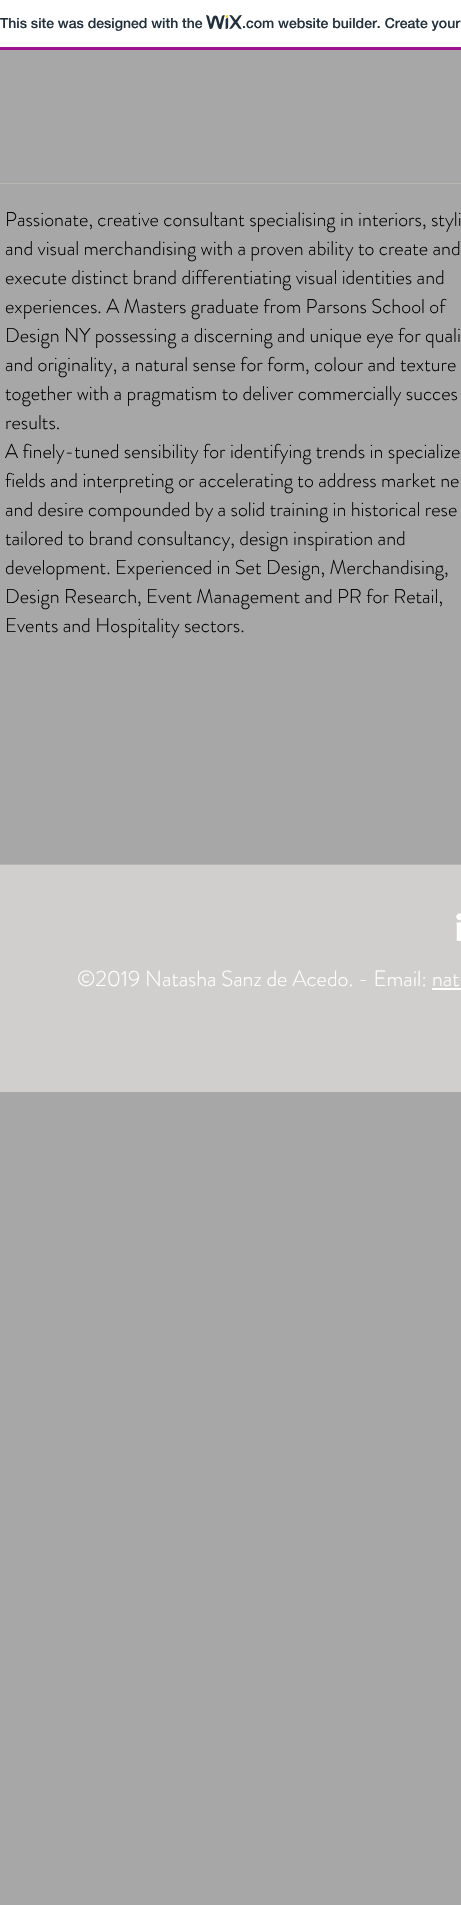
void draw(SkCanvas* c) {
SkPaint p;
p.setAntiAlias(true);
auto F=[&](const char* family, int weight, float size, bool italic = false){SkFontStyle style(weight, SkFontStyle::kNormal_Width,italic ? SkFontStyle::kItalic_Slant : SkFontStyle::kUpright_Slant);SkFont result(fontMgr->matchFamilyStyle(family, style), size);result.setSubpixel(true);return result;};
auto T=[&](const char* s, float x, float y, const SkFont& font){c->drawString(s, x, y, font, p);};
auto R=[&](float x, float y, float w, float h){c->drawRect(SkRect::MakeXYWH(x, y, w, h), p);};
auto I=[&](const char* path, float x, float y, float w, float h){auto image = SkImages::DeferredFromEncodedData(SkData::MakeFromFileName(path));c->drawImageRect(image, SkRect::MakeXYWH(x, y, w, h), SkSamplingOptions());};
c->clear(0xffffffff);
p.setColor(0xffa0138e);
R(0,47,461,3);
auto f1 = F("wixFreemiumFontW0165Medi",500,14);
p.setColor(0xff20303c);
T("This site was designed with the",0,28,f1);
I("1.png",206,15,36,15);
T(".com website builder. Create your",242,28,f1);
p.setColor(0xffa7a7a7);
R(0,50,461,1855);
p.setColor(0xffb9b5b1);
R(0,183,461,1);
auto f2 = F("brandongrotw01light",300,20);
p.setColor(0xff000000);
T("Passionate, creative consultant specialising in interiors, styli",5,226,f2);
T("and visual merchandising with a proven ability to create and",5,255,f2);
T("execute distinct brand differentiating visual identities and",5,284,f2);
T("experiences. A Masters graduate from Parsons School of",5,313,f2);
T("Design NY possessing a discerning and unique eye for quali",5,342,f2);
T("and originality, a natural sense for form, colour and texture",5,371,f2);
T("together with a pragmatism to deliver commercially succes",5,400,f2);
T("results.",5,429,f2);
T("A finely-tuned sensibility for identifying trends in specialize",5,458,f2);
T("fields and interpreting or accelerating to address market ne",5,487,f2);
T("and desire compounded by a solid training in historical rese",5,516,f2);
T("tailored to brand consultancy, design inspiration and",5,545,f2);
T("development. Experienced in Set Design, Merchandising,",5,574,f2);
T("Design Research, Event Management and PR for Retail,",5,603,f2);
T("Events and Hospitality sectors.",5,632,f2);
p.setColor(0xffd0cfcd);
R(0,865,461,227);
p.setColor(0xffb6b5b3);
R(0,864,461,1);
I("2.png",456,913,5,28);
auto f3 = F("brandongrotw01light",300,22);
p.setColor(0xffffffff);
T("©2019 Natasha Sanz de Acedo. - Email: nat",77,986,f3);
R(432,988,29,2);
}
